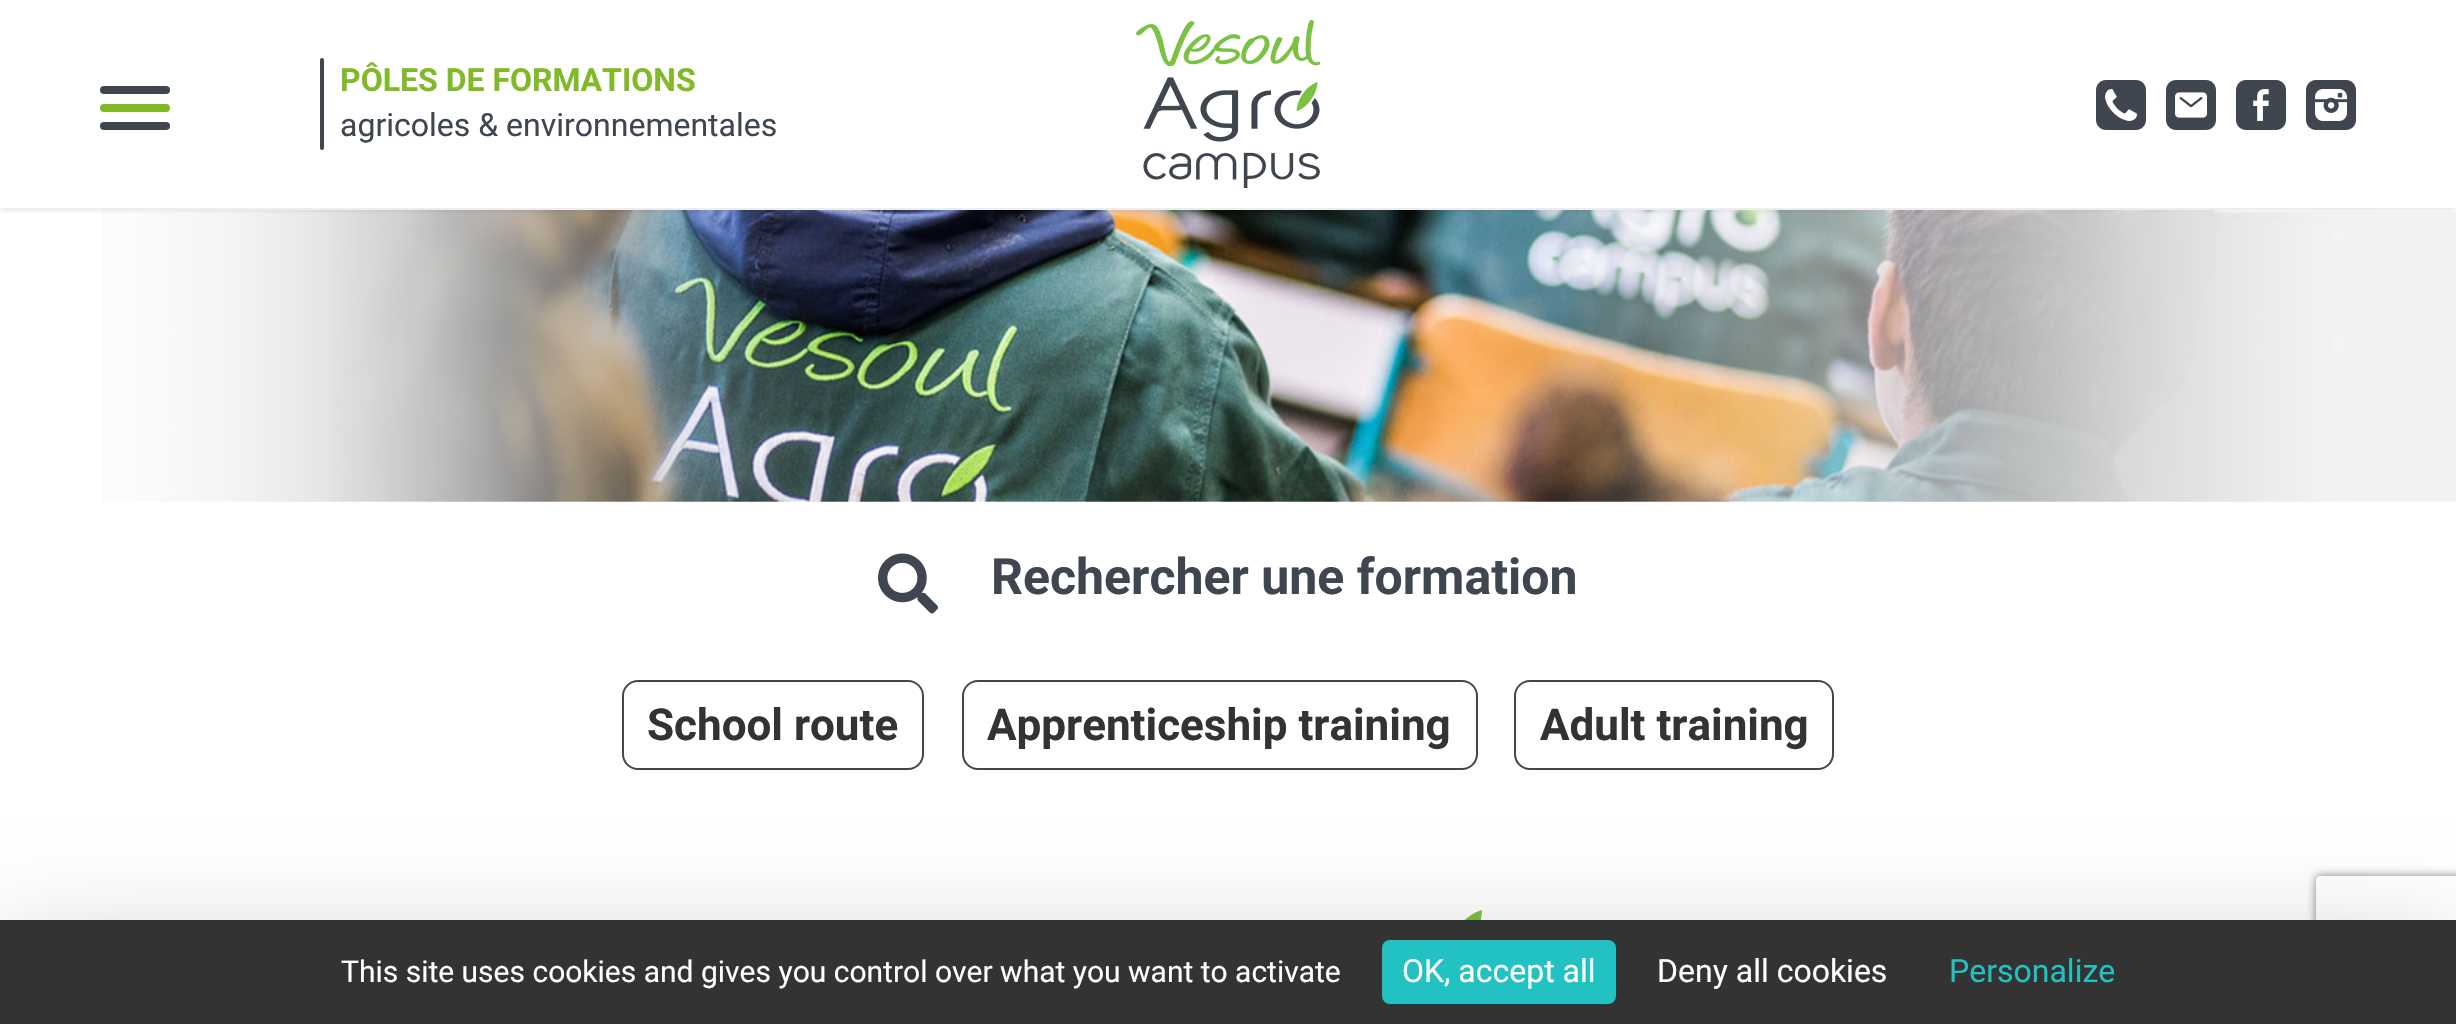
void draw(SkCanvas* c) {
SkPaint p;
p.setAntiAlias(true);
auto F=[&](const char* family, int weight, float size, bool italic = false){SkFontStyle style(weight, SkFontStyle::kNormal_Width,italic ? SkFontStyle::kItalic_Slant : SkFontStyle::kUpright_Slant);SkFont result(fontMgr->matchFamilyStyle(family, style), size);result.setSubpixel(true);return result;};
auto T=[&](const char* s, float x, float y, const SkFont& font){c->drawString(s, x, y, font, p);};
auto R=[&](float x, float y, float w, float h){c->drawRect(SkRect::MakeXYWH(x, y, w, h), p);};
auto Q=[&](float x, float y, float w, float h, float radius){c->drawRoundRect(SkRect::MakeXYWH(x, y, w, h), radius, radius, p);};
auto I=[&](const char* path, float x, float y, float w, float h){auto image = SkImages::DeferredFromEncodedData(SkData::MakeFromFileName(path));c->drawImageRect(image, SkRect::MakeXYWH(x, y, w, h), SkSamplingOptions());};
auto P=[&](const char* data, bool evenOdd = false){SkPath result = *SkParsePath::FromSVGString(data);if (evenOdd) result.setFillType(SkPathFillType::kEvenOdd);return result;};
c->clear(0xffffffff);
I("6.png",102,210,2354,292);
c->save();
c->clipRect(SkRect::MakeXYWH(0,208,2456,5));
p.setColor(0x29000000);
p.setMaskFilter(SkMaskFilter::MakeBlur(kNormal_SkBlurStyle, 4));
c->drawRect(SkRect::MakeXYWH(0,0,2456,208),p);
p.setMaskFilter(nullptr);
c->restore();
p.setColor(0xff80ba26);
Q(100,104,70,8,4);
p.setColor(0xff404650);
Q(100,86,70,8,4);
Q(100,122,70,8,4);
Q(320,58,4,92,2);
auto f1 = F("Roboto",700,32);
p.setColor(0xff80ba26);
T("PÔLES DE FORMATIONS",340,91,f1);
auto f2 = F("Roboto",400,32);
p.setColor(0xff404650);
T("agricoles & environnementales",340,136,f2);
I("1.png",1136,20,184,168);
I("2.png",2096,80,50,50);
I("3.png",2166,80,50,50);
I("4.png",2236,80,50,50);
I("5.png",2306,80,50,50);
I("7.png",878,553,60,61);
auto f3 = F("Roboto",700,50);
T("Rechercher une formation",991,594,f3);
p.setStroke(true);
p.setStrokeWidth(2);
c->drawRoundRect(SkRect::MakeXYWH(623,681,300,88),15,15,p);
auto f4 = F("Roboto",700,44);
p.setStroke(false);
p.setColor(0xff333333);
T("School route",647,740,f4);
p.setStroke(true);
p.setColor(0xff404650);
c->drawRoundRect(SkRect::MakeXYWH(963,681,514,88),15,15,p);
p.setStroke(false);
p.setColor(0xff333333);
T("Apprenticeship training",987,740,f4);
p.setStroke(true);
p.setColor(0xff404650);
c->drawRoundRect(SkRect::MakeXYWH(1515,681,318,88),15,15,p);
p.setStroke(false);
p.setColor(0xff333333);
T("Adult training",1540,740,f4);
I("8.png",1464,910,18,10);
c->save();
c->clipPath(P("M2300 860h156v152h-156zm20 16h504c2 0 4 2 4 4v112c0 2-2 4-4 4h-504c-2 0-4-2-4-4v-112c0-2 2-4 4-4z",true),true);
p.setColor(0xff808080);
p.setMaskFilter(SkMaskFilter::MakeBlur(kNormal_SkBlurStyle, 5));
c->drawRoundRect(SkRect::MakeXYWH(2316,876,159,120),4,4,p);
p.setMaskFilter(nullptr);
c->restore();
p.setColor(0x40000000);
p.setMaskFilter(SkMaskFilter::MakeBlur(kNormal_SkBlurStyle, 60));
c->drawRect(SkRect::MakeXYWH(0,960,2456,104),p);
p.setMaskFilter(nullptr);
p.setColor(0xff333333);
R(0,920,2456,104);
auto f5 = F("Roboto",400,30);
p.setColor(0xffffffff);
T("This site uses cookies and gives you control over what you want to activate",341,982,f5);
p.setColor(0xff23c2c2);
Q(1382,940,234,64,8);
p.setColor(0xffffffff);
T("OK, accept all",1402,982,f2);
T("Deny all cookies",1657,982,f2);
p.setColor(0xff23c2c2);
T("Personalize",1949,982,f2);
}
